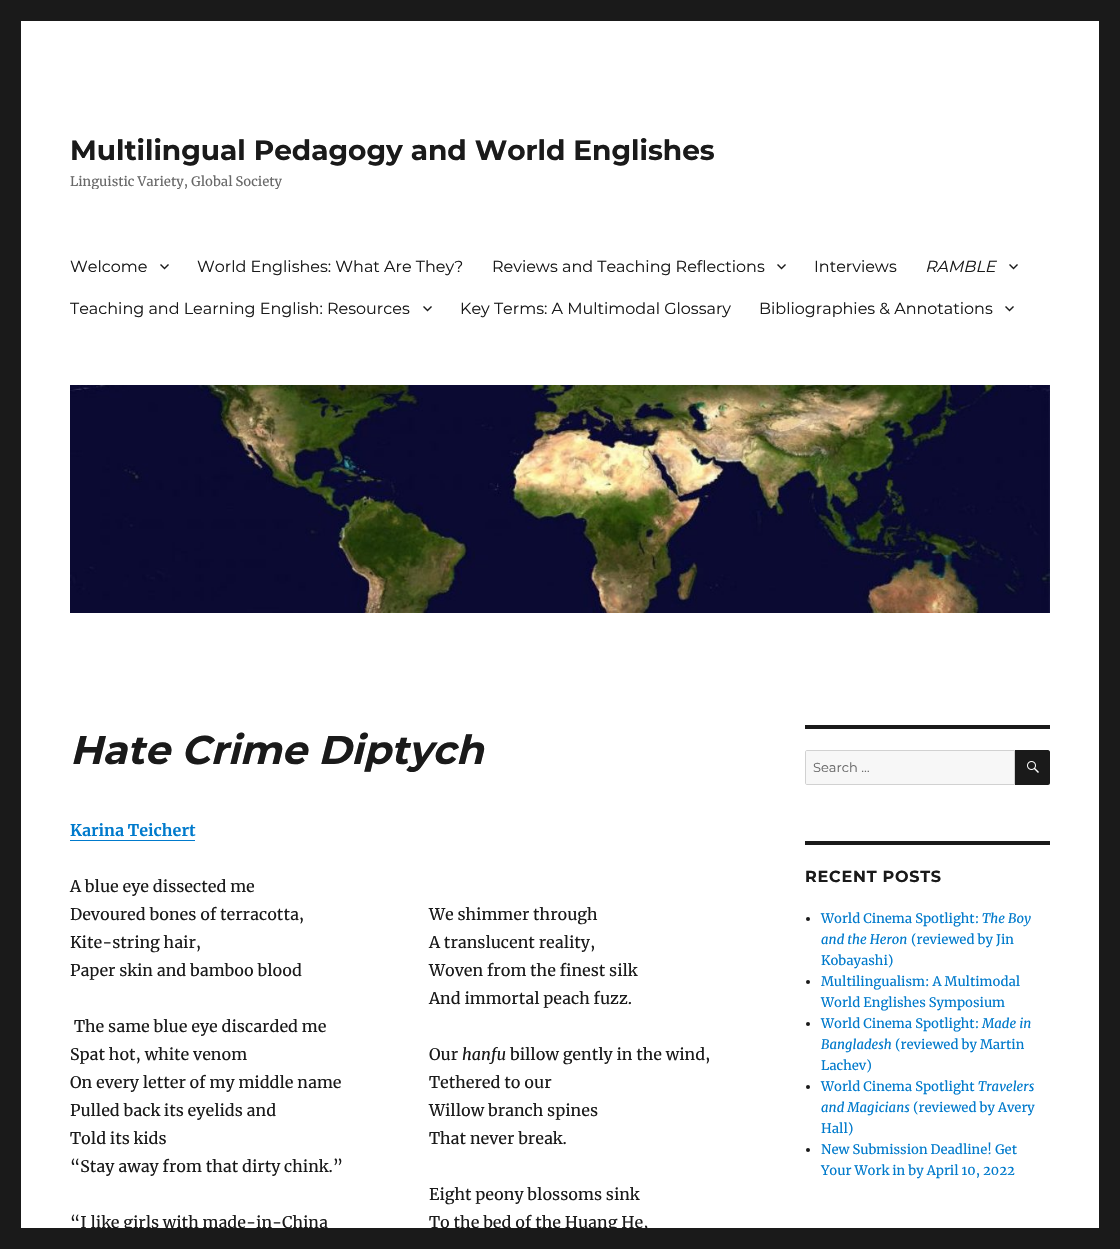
void draw(SkCanvas* c) {
SkPaint p;
p.setAntiAlias(true);
auto F=[&](const char* family, int weight, float size, bool italic = false){SkFontStyle style(weight, SkFontStyle::kNormal_Width,italic ? SkFontStyle::kItalic_Slant : SkFontStyle::kUpright_Slant);SkFont result(fontMgr->matchFamilyStyle(family, style), size);result.setSubpixel(true);return result;};
auto T=[&](const char* s, float x, float y, const SkFont& font){c->drawString(s, x, y, font, p);};
auto L=[&](const char* s, float x, float y, const SkFont& font, const SkPaint& ink, float letter, float word){std::vector<SkGlyphID> glyphs(font.countText(s, strlen(s), SkTextEncoding::kUTF8));std::vector<float> xs(glyphs.size());font.textToGlyphs(s, strlen(s), SkTextEncoding::kUTF8, glyphs);font.getXPos(glyphs, xs, x);float extra = 0;for (size_t i = 0; i < glyphs.size(); i++) {xs[i] += extra;extra += letter + word * (glyphs[i] == font.unicharToGlyph(' '));}c->drawTextBlob(SkTextBlob::MakeFromPosHGlyphs(glyphs, xs, y, font), 0, 0, ink);};
auto R=[&](float x, float y, float w, float h){c->drawRect(SkRect::MakeXYWH(x, y, w, h), p);};
auto I=[&](const char* path, float x, float y, float w, float h){auto image = SkImages::DeferredFromEncodedData(SkData::MakeFromFileName(path));c->drawImageRect(image, SkRect::MakeXYWH(x, y, w, h), SkSamplingOptions());};
auto P=[&](const char* data, bool evenOdd = false){SkPath result = *SkParsePath::FromSVGString(data);if (evenOdd) result.setFillType(SkPathFillType::kEvenOdd);return result;};
c->clear(0xff1a1a1a);
p.setColor(0xffffffff);
R(21,21,1078,1207);
auto f1 = F("Montserrat",100,28);
p.setColor(0xff1a1a1a);
T("Multilingual Pedagogy and World Englishes",70,160,f1);
c->save();
c->clipRect(SkRect::MakeXYWH(70,133,645,56));
auto f2 = F("Merriweather",400,13);
p.setColor(0xff686868);
T("Linguistic Variety, Global Society",70,186,f2);
c->restore();
auto f3 = F("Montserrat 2",100,16);
p.setColor(0xff1a1a1a);
T("Welcome",70,272,f3);
I("1.png",160,264,9,6);
T("World Englishes: What Are They?",197,272,f3);
T("Reviews and Teaching Reflections",492,272,f3);
I("1.png",777,264,9,6);
T("Interviews",814,272,f3);
auto f4 = F("Montserrat",100,16,true);
T("RAMBLE",925,272,f4);
I("1.png",1009,264,9,6);
T("Teaching and Learning English: Resources",70,314,f3);
I("1.png",423,306,9,6);
T("Key Terms: A Multimodal Glossary",460,314,f3);
T("Bibliographies & Annotations",759,314,f3);
I("1.png",1005,306,9,6);
I("2.png",70,385,980,228);
auto f5 = F("Montserrat 2",100,40,true);
T("Hate Crime Diptych",70,764,f5);
auto f6 = F("Merriweather",700,16);
p.setColor(0xff007acc);
T("Karina Teichert",70,836,f6);
R(70,840,125,1);
auto f7 = F("Merriweather",400,16);
p.setColor(0xff1a1a1a);
T("A blue eye dissected me",70,892,f7);
T("Devoured bones of terracotta,",70,920,f7);
T("Kite-string hair,",70,948,f7);
T("Paper skin and bamboo blood",70,976,f7);
T("The same blue eye discarded me",74,1032,f7);
T("Spat hot, white venom",70,1060,f7);
T("On every letter of my middle name",70,1088,f7);
T("Pulled back its eyelids and",70,1116,f7);
T("Told its kids",70,1144,f7);
T("“Stay away from that dirty chink.”",70,1172,f7);
T("“I like girls with made-in-China",70,1228,f7);
T("We shimmer through",429,920,f7);
T("A translucent reality,",429,948,f7);
T("Woven from the finest silk",429,976,f7);
T("And immortal peach fuzz.",429,1004,f7);
T("Our",429,1060,f7);
auto f8 = F("Merriweather",400,16,true);
T("hanfu",462,1060,f8);
T("billow gently in the wind,",510,1060,f7);
T("Tethered to our",429,1088,f7);
T("Willow branch spines",429,1116,f7);
T("That never break.",429,1144,f7);
T("Eight peony blossoms sink",429,1200,f7);
T("To the bed of the Huang He,",429,1228,f7);
R(805,725,245,4);
p.setColor(0xfff7f7f7);
c->drawPath(P("M807 750.5h207.5v34h-207.5c-1 0-1.5-.5-1.5-1.5v-31c0-1 .5-1.5 1.5-1.5z"),p);
p.setStroke(true);
p.setStrokeWidth(1);
p.setColor(0xffd1d1d1);
c->drawPath(P("M807 750.5h207.5v34h-207.5c-1 0-1.5-.5-1.5-1.5v-31c0-1 .5-1.5 1.5-1.5z"),p);
auto f9 = F("Montserrat 2",100,13);
p.setStroke(false);
p.setColor(0xff686868);
T("Search …",813,772,f9);
p.setColor(0xff1a1a1a);
c->drawPath(P("M1015 750h33c1 0 2 1 2 2v31c0 1-1 2-2 2h-33z"),p);
I("3.png",1027,761,12,12);
R(805,841,245,4);
auto f10 = F("Montserrat",100,16);
L("RECENT POSTS",805,882,f10,p,.75,0);
c->drawCircle(808,919,2,p);
p.setColor(0xff007acc);
T("World Cinema Spotlight:",821,923,f2);
auto f11 = F("Merriweather",400,13,true);
T("The Boy",982,923,f11);
T("and the Heron",821,944,f11);
T("(reviewed by Jin",911,944,f2);
T("Kobayashi)",821,965,f2);
p.setColor(0xff1a1a1a);
c->drawCircle(808,982,2,p);
p.setColor(0xff007acc);
T("Multilingualism: A Multimodal",821,986,f2);
T("World Englishes Symposium",821,1007,f2);
p.setColor(0xff1a1a1a);
c->drawCircle(808,1024,2,p);
p.setColor(0xff007acc);
T("World Cinema Spotlight:",821,1028,f2);
T("Made in",982,1028,f11);
T("Bangladesh",821,1049,f11);
T("(reviewed by Martin",895,1049,f2);
T("Lachev)",821,1070,f2);
p.setColor(0xff1a1a1a);
c->drawCircle(808,1087,2,p);
p.setColor(0xff007acc);
T("World Cinema Spotlight",821,1091,f2);
T("Travelers",978,1091,f11);
T("and Magicians",821,1112,f11);
T("(reviewed by Avery",913,1112,f2);
T("Hall)",821,1133,f2);
p.setColor(0xff1a1a1a);
c->drawCircle(808,1150,2,p);
p.setColor(0xff007acc);
T("New Submission Deadline! Get",821,1154,f2);
T("Your Work in by April 10, 2022",821,1175,f2);
}
